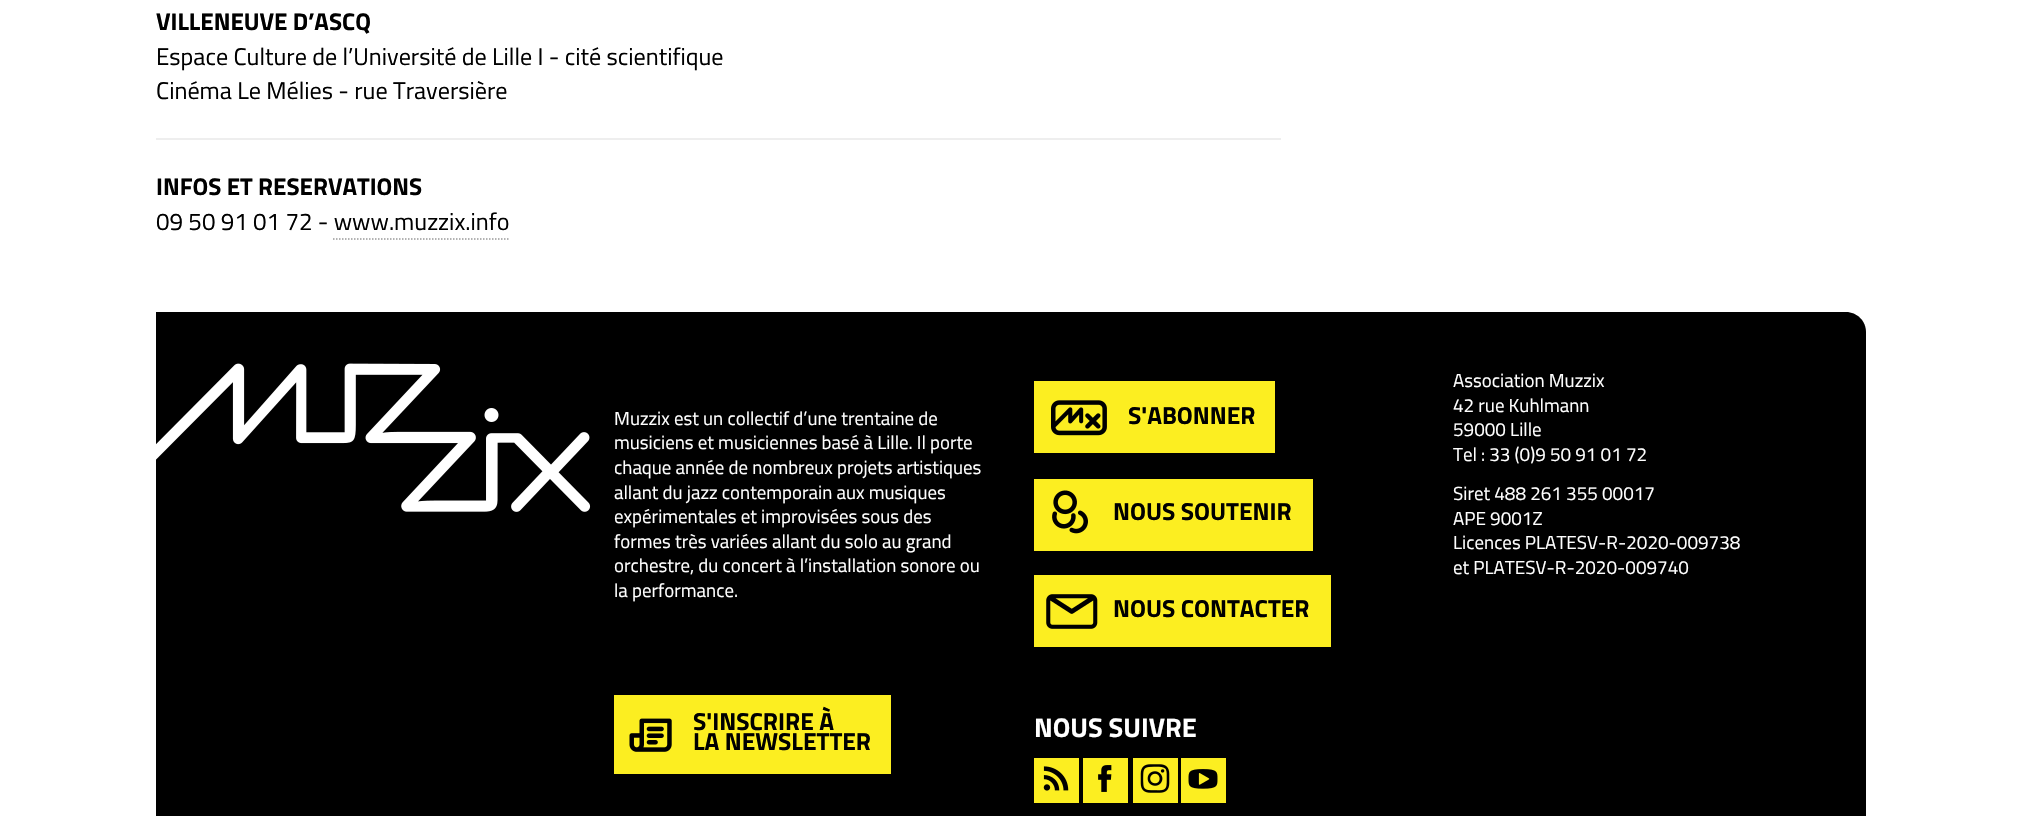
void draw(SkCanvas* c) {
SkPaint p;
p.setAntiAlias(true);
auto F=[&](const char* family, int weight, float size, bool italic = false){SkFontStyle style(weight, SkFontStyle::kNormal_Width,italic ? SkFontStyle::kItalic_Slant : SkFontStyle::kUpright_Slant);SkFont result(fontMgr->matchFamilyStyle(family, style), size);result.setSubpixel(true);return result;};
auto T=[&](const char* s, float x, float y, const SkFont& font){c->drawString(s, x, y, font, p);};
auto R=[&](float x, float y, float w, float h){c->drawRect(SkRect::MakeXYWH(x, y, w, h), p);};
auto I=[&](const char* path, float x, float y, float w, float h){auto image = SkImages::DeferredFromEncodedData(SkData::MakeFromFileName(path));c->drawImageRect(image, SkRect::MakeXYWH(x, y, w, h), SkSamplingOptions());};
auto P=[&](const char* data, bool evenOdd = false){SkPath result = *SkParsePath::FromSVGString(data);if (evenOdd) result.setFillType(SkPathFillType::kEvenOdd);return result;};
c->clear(0xffffffff);
auto f1 = F("Titillium Web",700,24.15);
p.setColor(0xff000000);
T("VILLENEUVE D’ASCQ",156,30,f1);
auto f2 = F("Titillium Web",400,24.15);
T("Espace Culture de l’Université de Lille I - cité scientifique",156,65,f2);
T("Cinéma Le Mélies - rue Traversière",156,99,f2);
p.setColor(0xffeeeeee);
R(156,138,1125,2);
p.setColor(0xff000000);
T("INFOS ET RESERVATIONS",156,195,f1);
T("09 50 91 01 72 - www.muzzix.info",156,230,f2);
p.setStroke(true);
p.setStrokeWidth(1.5);
p.setColor(0xff999999);
p.setPathEffect(SkDashPathEffect::Make({{1.5f,1.5f}}, 0));
c->drawPath(P("M333 239h177"),p);
p.setPathEffect(nullptr);
p.setStroke(false);
p.setColor(0xff000000);
c->drawPath(P("M156 312h1690c11 0 20 9 20 20v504h-1710z"),p);
I("1.png",156,363,435,149);
auto f3 = F("Titillium Web",400,18.9);
p.setColor(0xffffffff);
T("Muzzix est un collectif d’une trentaine de",614,425,f3);
T("musiciens et musiciennes basé à Lille. Il porte",614,449,f3);
T("chaque année de nombreux projets artistiques",614,474,f3);
T("allant du jazz contemporain aux musiques",614,499,f3);
T("expérimentales et improvisées sous des",614,523,f3);
T("formes très variées allant du solo au grand",614,548,f3);
T("orchestre, du concert à l’installation sonore ou",614,572,f3);
T("la performance.",614,597,f3);
p.setColor(0xfffcee21);
R(614,695,277,79);
I("2.png",629,718,43,34);
auto f4 = F("Titillium Web",700,24.5);
p.setColor(0xff000000);
T("S'INSCRIRE À",693,730,f4);
T("LA NEWSLETTER",693,750,f4);
p.setColor(0xfffcee21);
R(1034,381,241,72);
I("3.png",1051,400,56,36);
p.setColor(0xff000000);
T("S'ABONNER",1128,424,f4);
p.setColor(0xfffcee21);
R(1034,479,279,72);
I("4.png",1052,490,36,44);
p.setColor(0xff000000);
T("NOUS SOUTENIR",1113,520,f4);
p.setColor(0xfffcee21);
R(1034,575,297,72);
I("5.png",1046,594,52,35);
p.setColor(0xff000000);
T("NOUS CONTACTER",1113,617,f4);
auto f5 = F("Titillium Web",700,27);
p.setColor(0xffffffff);
T("NOUS SUIVRE",1034,737,f5);
p.setColor(0xfffcee21);
R(1034,758,45,45);
I("6.png",1043,766,26,25);
R(1083,758,45,45);
I("7.png",1098,765,14,27);
R(1133,758,45,45);
I("8.png",1140,764,30,29);
R(1181,758,45,45);
I("9.png",1188,769,30,20);
p.setColor(0xffffffff);
T("Association Muzzix",1453,387,f3);
T("42 rue Kuhlmann",1453,412,f3);
T("59000 Lille",1453,436,f3);
T("Tel : 33 (0)9 50 91 01 72",1453,461,f3);
T("Siret 488 261 355 00017",1453,500,f3);
T("APE 9001Z",1453,525,f3);
T("Licences PLATESV-R-2020-009738",1453,549,f3);
T("et PLATESV-R-2020-009740",1453,574,f3);
}
